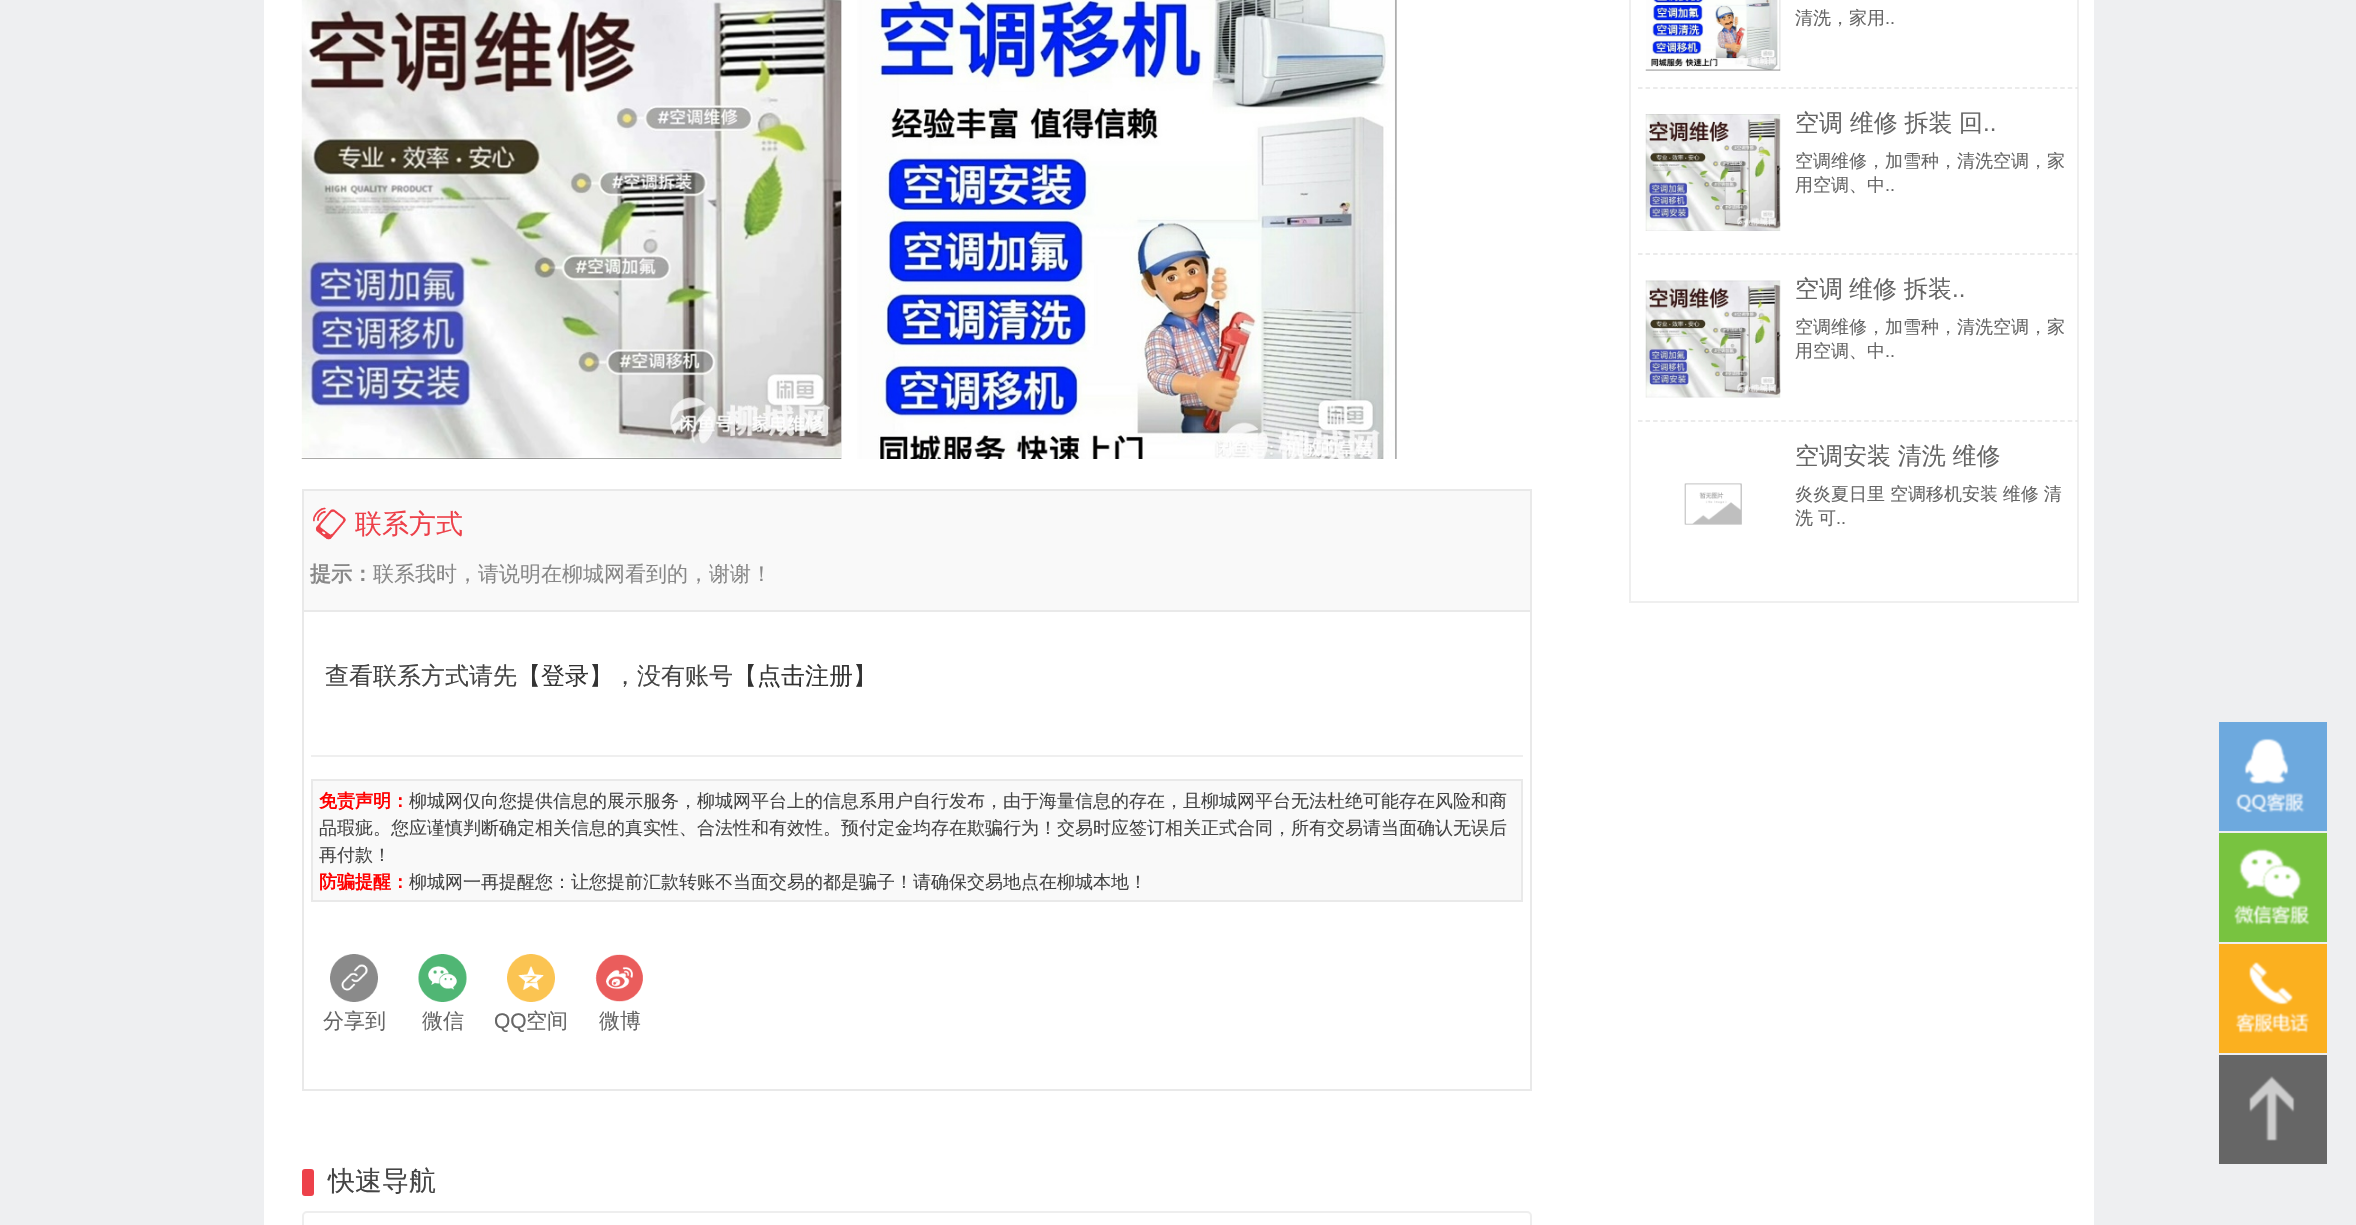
void draw(SkCanvas* c) {
SkPaint p;
p.setAntiAlias(true);
auto F=[&](const char* family, int weight, float size, bool italic = false){SkFontStyle style(weight, SkFontStyle::kNormal_Width,italic ? SkFontStyle::kItalic_Slant : SkFontStyle::kUpright_Slant);SkFont result(fontMgr->matchFamilyStyle(family, style), size);result.setSubpixel(true);return result;};
auto T=[&](const char* s, float x, float y, const SkFont& font){c->drawString(s, x, y, font, p);};
auto L=[&](const char* s, float x, float y, const SkFont& font, const SkPaint& ink, float letter, float word){std::vector<SkGlyphID> glyphs(font.countText(s, strlen(s), SkTextEncoding::kUTF8));std::vector<float> xs(glyphs.size());font.textToGlyphs(s, strlen(s), SkTextEncoding::kUTF8, glyphs);font.getXPos(glyphs, xs, x);float extra = 0;for (size_t i = 0; i < glyphs.size(); i++) {xs[i] += extra;extra += letter + word * (glyphs[i] == font.unicharToGlyph(' '));}c->drawTextBlob(SkTextBlob::MakeFromPosHGlyphs(glyphs, xs, y, font), 0, 0, ink);};
auto R=[&](float x, float y, float w, float h){c->drawRect(SkRect::MakeXYWH(x, y, w, h), p);};
auto Q=[&](float x, float y, float w, float h, float radius){c->drawRoundRect(SkRect::MakeXYWH(x, y, w, h), radius, radius, p);};
auto I=[&](const char* path, float x, float y, float w, float h){auto image = SkImages::DeferredFromEncodedData(SkData::MakeFromFileName(path));c->drawImageRect(image, SkRect::MakeXYWH(x, y, w, h), SkSamplingOptions());};
auto P=[&](const char* data, bool evenOdd = false){SkPath result = *SkParsePath::FromSVGString(data);if (evenOdd) result.setFillType(SkPathFillType::kEvenOdd);return result;};
c->clear(0xffeeeff1);
p.setColor(0xffffffff);
R(264,0,1830,1225);
p.setStroke(true);
p.setStrokeWidth(2);
p.setColor(0xffefefef);
c->drawRect(SkRect::MakeXYWH(1630,-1,448,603),p);
c->save();
c->clipRect(SkRect::MakeXYWH(1631,0,447,602));
p.setStrokeWidth(1.5);
p.setColor(0xffe5e5e5);
p.setPathEffect(SkDashPathEffect::Make({{4.5f,3.04f}}, 0));
c->drawPath(P("M1638 88h442.5"),p);
p.setPathEffect(nullptr);
c->restore();
I("1.png",1645,0,136,71);
auto f1 = F("WenQuanYi Zen Hei",500,18);
p.setStroke(false);
p.setColor(0xff666666);
T("清洗，家用",1795,24,f1);
auto f2 = F("Liberation Sans",400,18);
T("..",1885,24,f2);
c->save();
c->clipRect(SkRect::MakeXYWH(1631,0,447,602));
p.setStroke(true);
p.setColor(0xffe5e5e5);
p.setPathEffect(SkDashPathEffect::Make({{4.5f,3.04f}}, 0));
c->drawPath(P("M1638 254h442.5"),p);
p.setPathEffect(nullptr);
c->restore();
I("2.png",1645,114,136,117);
auto f3 = F("WenQuanYi Zen Hei",500,24);
p.setStroke(false);
p.setColor(0xff666666);
L("空调 维修 拆装 回",1795,131,f3,p,0,-.5);
auto f4 = F("Liberation Sans",400,24);
T("..",1983,131,f4);
T("空调维修，加雪种，清洗空调，家",1795,167,f1);
T("用空调、中",1795,191,f1);
T("..",1885,191,f2);
c->save();
c->clipRect(SkRect::MakeXYWH(1631,0,447,602));
p.setStroke(true);
p.setColor(0xffe5e5e5);
p.setPathEffect(SkDashPathEffect::Make({{4.5f,3.04f}}, 0));
c->drawPath(P("M1638 421h442.5"),p);
p.setPathEffect(nullptr);
c->restore();
I("3.png",1645,280,136,118);
p.setStroke(false);
p.setColor(0xff666666);
T("空调",1795,297,f3);
T("维修",1849,297,f3);
T("拆装",1904,297,f3);
T("..",1952,297,f4);
T("空调维修，加雪种，清洗空调，家",1795,333,f1);
T("用空调、中",1795,357,f1);
T("..",1885,357,f2);
I("4.png",1684,483,58,42);
L("空调安装 清洗 维修",1795,464,f3,p,0,-.5);
L("炎炎夏日里 空调移机安装 维修 清",1795,500,f1,p,0,-.5);
L("洗 可",1795,524,f1,p,0,-.5);
T("..",1836,524,f2);
p.setColor(0xfff0f0f0);
R(841,0,1,459);
I("5.png",301,0,541,459);
R(1396,0,1,459);
I("6.png",857,0,540,459);
p.setColor(0xfff9f9f9);
c->drawRect(SkRect::MakeXYWH(303,490,1228,121),p);
p.setStroke(true);
p.setStrokeWidth(2);
p.setColor(0xffe9e9e9);
c->drawRect(SkRect::MakeXYWH(303,490,1228,121),p);
I("7.png",313,507,33,33);
auto f5 = F("WenQuanYi Zen Hei",500,27);
p.setStroke(false);
p.setColor(0xffed414a);
T("联系方式",355,533,f5);
auto f6 = F("WenQuanYi Zen Hei",700,21);
p.setColor(0xff888888);
T("提示：",310,581,f6);
auto f7 = F("WenQuanYi Zen Hei",500,21);
T("联系我时，请说明在柳城网看到的，谢谢！",373,581,f7);
p.setColor(0xffe9e9e9);
R(1530,612,2,479);
R(302,1089,1230,2);
R(302,612,2,479);
p.setColor(0xff444444);
T("查看联系方式请先",325,684,f3);
p.setColor(0xff333333);
T("【登录】",517,684,f3);
p.setColor(0xff444444);
T("，没有账号",613,684,f3);
p.setColor(0xff333333);
T("【点击注册】",733,684,f3);
p.setColor(0xffefefef);
R(311,755,1212,2);
p.setColor(0xfff9f9f9);
c->drawRect(SkRect::MakeXYWH(312,780,1210,121),p);
p.setStroke(true);
p.setColor(0xffe9e9e9);
c->drawRect(SkRect::MakeXYWH(312,780,1210,121),p);
auto f8 = F("WenQuanYi Zen Hei",700,18);
p.setStroke(false);
p.setColor(0xffff0000);
T("免责声明：",319,807,f8);
p.setColor(0xff444444);
T("柳城网仅向您提供信息的展示服务，柳城网平台上的信息系用户自行发布，由于海量信息的存在，且柳城网平台无法杜绝可能存在风险和商",409,807,f1);
T("品瑕疵。您应谨慎判断确定相关信息的真实性、合法性和有效性。预付定金均存在欺骗行为！交易时应签订相关正式合同，所有交易请当面确认无误后",319,834,f1);
T("再付款！",319,861,f1);
p.setColor(0xffff0000);
T("防骗提醒：",319,888,f8);
p.setColor(0xff444444);
T("柳城网一再提醒您：让您提前汇款转账不当面交易的都是骗子！请确保交易地点在柳城本地！",409,888,f1);
I("8.png",330,954,48,48);
p.setColor(0xff666666);
T("分享到",323,1028,f7);
I("9.png",418,954,49,48);
T("微信",422,1028,f7);
I("10.png",507,954,48,48);
auto f9 = F("Liberation Sans",400,21);
T("QQ",494,1028,f9);
T("空间",526,1028,f7);
I("11.png",595,954,48,48);
T("微博",599,1028,f7);
p.setColor(0xffed414a);
Q(302,1169,12,27,3);
p.setColor(0xff444444);
T("快速导航",328,1190,f5);
p.setStroke(true);
p.setColor(0xffeeeeee);
c->drawRoundRect(SkRect::MakeXYWH(303,1212,1228,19),4,4,p);
p.setStroke(false);
p.setColor(0xff6da9de);
R(2219,722,108,109);
I("12.png",2235,738,70,75);
p.setColor(0xff78c340);
R(2219,833,108,109);
I("13.png",2234,848,76,77);
p.setColor(0xfffbb01f);
R(2219,944,108,109);
I("14.png",2235,962,75,71);
p.setColor(0xff666666);
R(2219,1055,108,109);
I("15.png",2249,1076,46,65);
}
